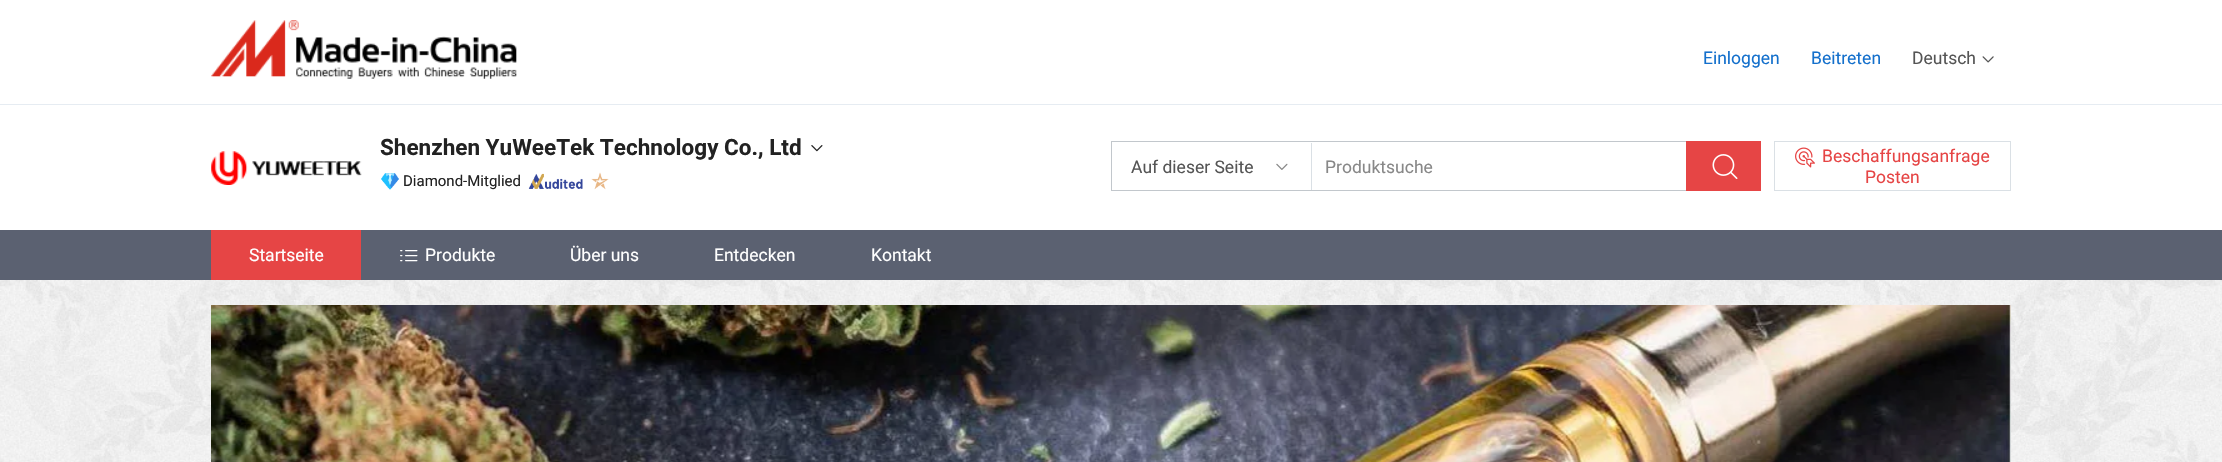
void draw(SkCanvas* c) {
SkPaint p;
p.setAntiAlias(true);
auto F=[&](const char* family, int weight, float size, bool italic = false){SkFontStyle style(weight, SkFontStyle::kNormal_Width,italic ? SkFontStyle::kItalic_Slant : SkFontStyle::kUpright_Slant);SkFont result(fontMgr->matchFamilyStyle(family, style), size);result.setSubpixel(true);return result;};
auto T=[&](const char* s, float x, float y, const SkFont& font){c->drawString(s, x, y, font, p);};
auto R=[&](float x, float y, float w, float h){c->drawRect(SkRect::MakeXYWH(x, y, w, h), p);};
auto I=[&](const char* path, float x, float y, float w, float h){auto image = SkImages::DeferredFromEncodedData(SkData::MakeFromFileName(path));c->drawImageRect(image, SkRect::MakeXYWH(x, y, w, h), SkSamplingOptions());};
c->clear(0xffffffff);
p.setColor(0xffe6ecf2);
R(0,104,2222,1);
I("1.png",211,151,151,34);
auto f1 = F("Roboto",700,22.5);
p.setColor(0xff222222);
T("Shenzhen YuWeeTek Technology Co., Ltd",380,155,f1);
I("2.png",811,145,12,7);
I("3.png",381,173,18,17);
auto f2 = F("Roboto",400,15);
T("Diamond-Mitglied",403,186,f2);
I("4.png",528,173,55,16);
I("5.png",591,172,18,18);
I("6.png",211,20,306,59);
auto f3 = F("Roboto",400,17.5);
p.setColor(0xff1470cc);
T("Einloggen",1703,64,f3);
T("Beitreten",1811,64,f3);
p.setColor(0xff555555);
T("Deutsch",1912,64,f3);
I("7.png",1982,56,12,7);
p.setStroke(true);
p.setStrokeWidth(1);
p.setColor(0xffc2c7cc);
c->drawRect(SkRect::MakeXYWH(1111.5,141.5,649,49),p);
p.setStroke(false);
p.setColor(0xffdae0e5);
R(1311,143,1,47);
p.setColor(0xff555555);
T("Auf dieser Seite",1131,173,f3);
I("8.png",1276,163,12,7);
p.setColor(0xff888888);
T("Produktsuche",1325,173,f3);
p.setColor(0xffe64545);
R(1686,141,75,50);
I("9.png",1712,154,26,25);
p.setStroke(true);
p.setColor(0xffdae0e5);
c->drawRect(SkRect::MakeXYWH(1774.5,141.5,236,49),p);
I("10.png",1795,147,20,21);
p.setStroke(false);
p.setColor(0xffe64545);
T("Beschaffungsanfrage",1822,162,f3);
T("Posten",1865,183,f3);
p.setColor(0xff5b6171);
R(0,230,2222,50);
p.setColor(0xffe64545);
R(211,230,150,50);
p.setColor(0xffffffff);
T("Startseite",249,261,f3);
I("11.png",400,250,18,12);
T("Produkte",425,261,f3);
T("Über uns",570,261,f3);
T("Entdecken",714,261,f3);
T("Kontakt",871,261,f3);
I("12.png",0,280,2222,182);
I("13.png",211,305,1800,157);
}
